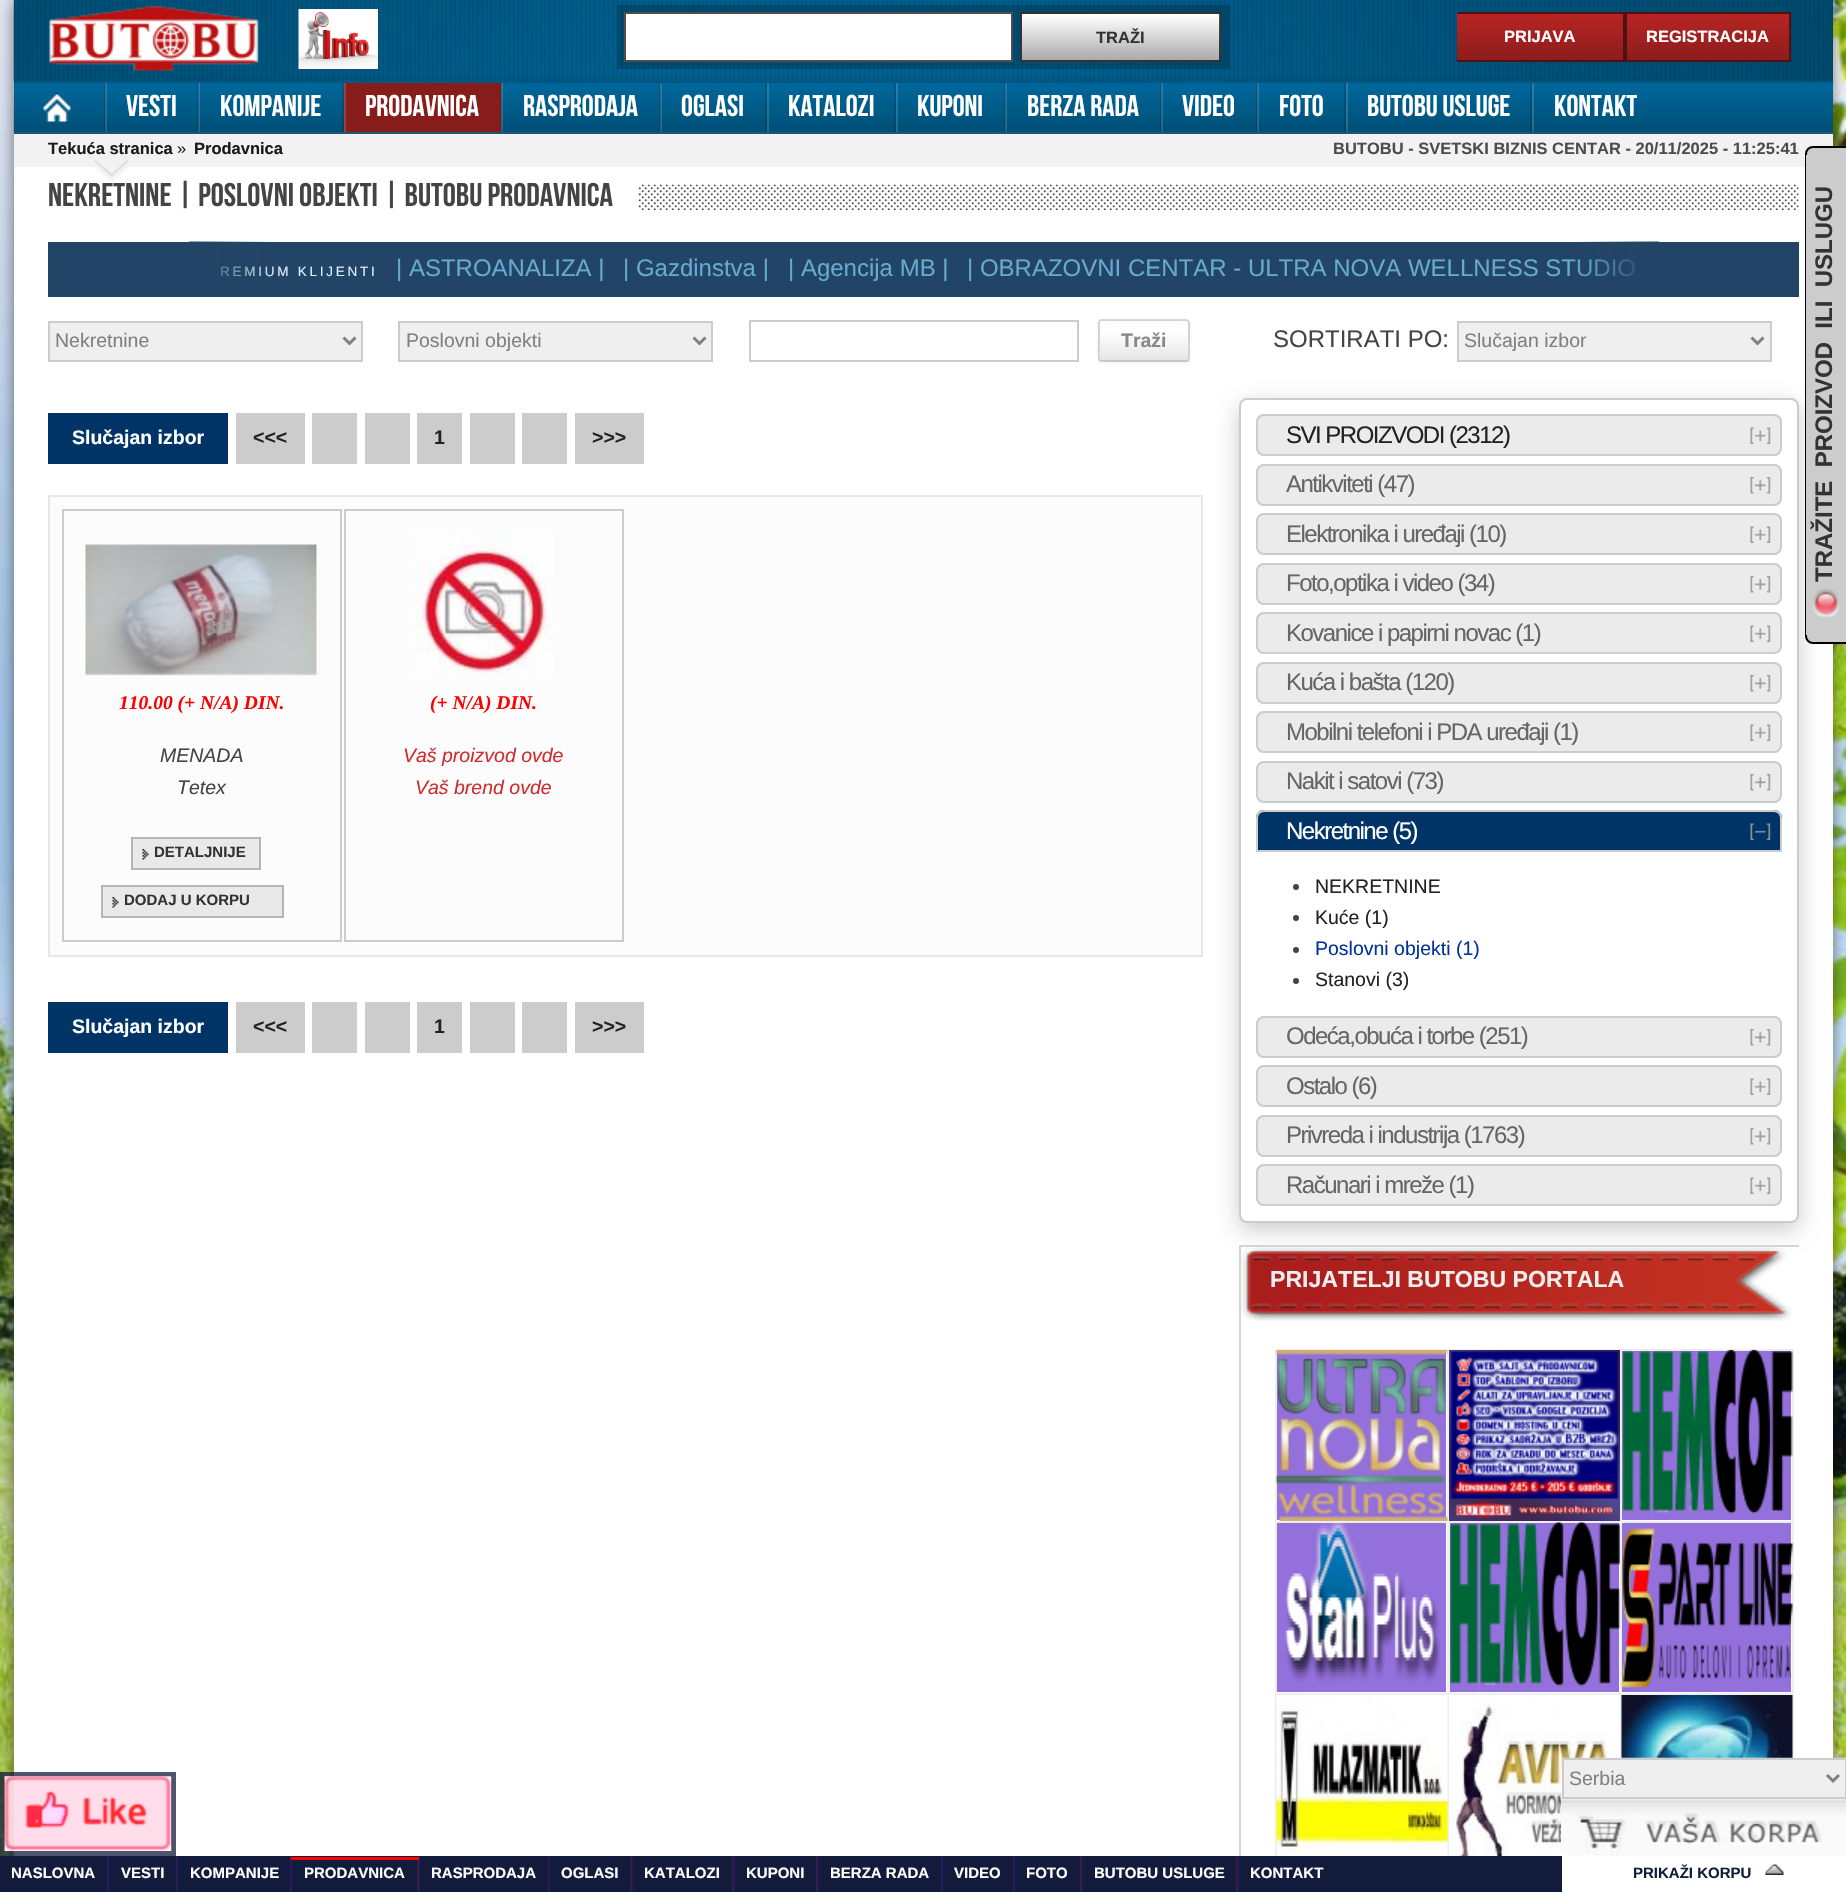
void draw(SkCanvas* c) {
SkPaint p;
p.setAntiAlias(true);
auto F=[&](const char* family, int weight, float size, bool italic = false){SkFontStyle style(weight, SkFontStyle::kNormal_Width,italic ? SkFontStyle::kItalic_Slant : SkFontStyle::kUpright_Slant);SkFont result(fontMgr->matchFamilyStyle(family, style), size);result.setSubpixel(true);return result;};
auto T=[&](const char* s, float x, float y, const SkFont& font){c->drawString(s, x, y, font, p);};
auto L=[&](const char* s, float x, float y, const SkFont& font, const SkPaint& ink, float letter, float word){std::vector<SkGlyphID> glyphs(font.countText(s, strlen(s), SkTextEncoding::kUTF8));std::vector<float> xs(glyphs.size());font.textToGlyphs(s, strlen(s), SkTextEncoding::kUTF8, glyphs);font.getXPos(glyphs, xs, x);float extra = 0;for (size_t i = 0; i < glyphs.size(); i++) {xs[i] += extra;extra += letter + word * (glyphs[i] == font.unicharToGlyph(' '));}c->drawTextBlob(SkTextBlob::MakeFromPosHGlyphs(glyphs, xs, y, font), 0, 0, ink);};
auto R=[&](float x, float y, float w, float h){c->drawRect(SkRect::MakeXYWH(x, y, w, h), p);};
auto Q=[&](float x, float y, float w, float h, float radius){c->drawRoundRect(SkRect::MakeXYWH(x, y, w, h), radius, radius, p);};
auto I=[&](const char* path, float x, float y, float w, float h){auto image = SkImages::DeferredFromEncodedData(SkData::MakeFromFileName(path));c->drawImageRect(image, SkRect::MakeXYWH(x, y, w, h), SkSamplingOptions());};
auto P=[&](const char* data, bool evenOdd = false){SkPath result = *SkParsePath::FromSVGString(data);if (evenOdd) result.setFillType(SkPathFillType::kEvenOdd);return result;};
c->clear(0xffffffff);
I("1.png",0,0,1846,1856);
p.setColor(0x80000000);
p.setMaskFilter(SkMaskFilter::MakeBlur(kNormal_SkBlurStyle, 7.5));
c->drawRect(SkRect::MakeXYWH(14,0,1819,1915),p);
p.setMaskFilter(nullptr);
p.setColor(0xff006699);
R(14,0,1819,132);
I("2.png",168,76,1491,5);
I("3.png",13,0,1820,81);
I("4.png",13,0,1820,81);
I("5.png",49,5,210,66);
I("6.png",298,9,80,60);
p.setColor(0x33000000);
R(617,5,613,64);
p.setColor(0xffffffff);
c->drawRect(SkRect::MakeXYWH(625,13,387,48),p);
p.setStroke(true);
p.setStrokeWidth(2);
p.setColor(0xff4d4d4d);
c->drawRect(SkRect::MakeXYWH(625,13,387,48),p);
p.setStroke(false);
p.setColor(0xffaaaaaa);
R(1020,12,201,50);
{
const SkColor colors[] = {0xffffffff,0xffffffff,0xffaaaaaa};
const float stops[] = {0,.05,1};
const SkPoint ends[] = {{1121,13}, {1121,60}};
p.setShader(SkGradientShader::MakeLinear(ends, colors, stops, 3, SkTileMode::kClamp));
p.setAlpha(255);
}
R(1022,14,198,45);
p.setStroke(true);
p.setShader(nullptr);
p.setColor(0xb3000000);
c->drawRect(SkRect::MakeXYWH(1021,13,199,48),p);
auto f1 = F("Liberation Sans",700,16.5);
p.setStroke(false);
p.setColor(0xff333333);
T("TRAŽI",1096,43,f1);
p.setColor(0xffb52423);
R(1457,14,166,46);
I("7.png",1456,19,167,43);
p.setColor(0xff521111);
R(1457,12,168,2);
R(1623,12,2,50);
R(1457,60,168,2);
p.setColor(0xffffffff);
T("PRIJAVA",1504,42,f1);
p.setColor(0xffb52423);
R(1627,14,162,46);
I("8.png",1627,19,162,41);
p.setStroke(true);
p.setColor(0xff521111);
c->drawRect(SkRect::MakeXYWH(1626,13,164,48),p);
p.setStroke(false);
p.setColor(0xffffffff);
T("REGISTRACIJA",1646,42,f1);
p.setColor(0xff005782);
R(14,81,1819,2);
I("9.png",13,91,1820,41);
p.setColor(0xff1b5876);
R(14,132,1819,2);
I("10.png",43,93,28,29);
p.setColor(0x26000000);
R(104,83,2,49);
R(197,83,2,49);
p.setColor(0x26ffffff);
R(105,83,2,49);
auto f2 = F("Bebas Neue",400,30);
p.setColor(0xffffffff);
T("Vesti",126,116,f2);
p.setColor(0x26000000);
R(342,83,2,49);
p.setColor(0x26ffffff);
R(198,83,2,49);
p.setColor(0xffffffff);
T("Kompanije",220,116,f2);
p.setColor(0xff871d1b);
R(346,83,155,49);
p.setColor(0x26000000);
R(500,83,2,49);
p.setColor(0xff993f3d);
R(344,83,2,49);
p.setColor(0xffffffff);
T("Prodavnica",365,116,f2);
p.setColor(0x26000000);
R(659,83,2,49);
p.setColor(0x26ffffff);
R(501,83,2,49);
p.setColor(0xffffffff);
T("Rasprodaja",523,116,f2);
p.setColor(0x26000000);
R(765,83,2,49);
p.setColor(0x26ffffff);
R(660,83,2,49);
p.setColor(0xffffffff);
T("Oglasi",681,116,f2);
p.setColor(0x26000000);
R(894,83,2,49);
p.setColor(0x26ffffff);
R(767,83,2,49);
p.setColor(0xffffffff);
T("Katalozi",788,116,f2);
p.setColor(0x26000000);
R(1004,83,2,49);
p.setColor(0x26ffffff);
R(896,83,2,49);
p.setColor(0xffffffff);
T("Kuponi",917,116,f2);
p.setColor(0x26000000);
R(1160,83,2,49);
p.setColor(0x26ffffff);
R(1005,83,2,49);
p.setColor(0xffffffff);
T("Berza rada",1027,116,f2);
p.setColor(0x26000000);
R(1256,83,2,49);
p.setColor(0x26ffffff);
R(1161,83,2,49);
p.setColor(0xffffffff);
T("Video",1182,116,f2);
p.setColor(0x26000000);
R(1344,83,2,49);
p.setColor(0x26ffffff);
R(1257,83,2,49);
p.setColor(0xffffffff);
T("Foto",1279,116,f2);
p.setColor(0x26000000);
R(1530,83,2,49);
p.setColor(0x26ffffff);
R(1346,83,2,49);
p.setColor(0xffffffff);
T("Butobu usluge",1367,116,f2);
p.setColor(0x26ffffff);
R(1532,83,2,49);
p.setColor(0xffffffff);
T("Kontakt",1554,116,f2);
p.setColor(0xfff2f2f2);
R(14,134,1819,33);
p.setColor(0xff1a1a1a);
T("Tekuća stranica",48,154,f1);
auto f3 = F("Liberation Sans",400,16.5);
T("»",177,154,f3);
T("Prodavnica",194,154,f1);
p.setColor(0xffffffff);
R(14,167,1819,1689);
auto f4 = F("Bebas Neue",400,33);
p.setColor(0xff444444);
T("NEKRETNINE | POSLOVNI OBJEKTI | BUTOBU PRODAVNICA",48,206,f4);
I("11.png",94,160,35,22);
p.setColor(0xff4d4d4d);
T("BUTOBU - SVETSKI BIZNIS CENTAR - 20/11/2025 - 11:25:41",1333,154,f1);
I("12.png",638,184,1161,26);
p.setColor(0xff224466);
R(48,242,1751,55);
auto f5 = F("Liberation Sans",400,13.5);
p.setColor(0xffddeeff);
L("REMIUM KLIJENTI",220,276,f5,p,2.75,0);
I("13.png",189,241,85,36);
auto f6 = F("Liberation Sans",400,24);
p.setColor(0xff66aacc);
T("| OBRAZOVNI CENTAR - ULTRA NOVA WELLNESS STUDIO",967,276,f6);
I("14.png",1574,241,85,41);
T("| ASTROANALIZA |",396,276,f6);
T("| Gazdinstva |",623,276,f6);
T("| Agencija MB |",788,276,f6);
p.setColor(0xffefefef);
c->drawRect(SkRect::MakeXYWH(49,322,313,39),p);
p.setStroke(true);
p.setColor(0xffcccccc);
c->drawRect(SkRect::MakeXYWH(49,322,313,39),p);
p.setStrokeWidth(3);
p.setColor(0xff808080);
c->drawPath(P("M343.5 337.5l6 6l6-6"),p);
auto f7 = F("Liberation Sans",400,19.5);
p.setStroke(false);
T("Nekretnine",55,347,f7);
p.setColor(0xffefefef);
c->drawRect(SkRect::MakeXYWH(399,322,313,39),p);
p.setStroke(true);
p.setStrokeWidth(2);
p.setColor(0xffcccccc);
c->drawRect(SkRect::MakeXYWH(399,322,313,39),p);
p.setStrokeWidth(3);
p.setColor(0xff808080);
c->drawPath(P("M693.5 337.5l6 6l6-6"),p);
p.setStroke(false);
T("Poslovni objekti",406,347,f7);
p.setStroke(true);
p.setStrokeWidth(2);
p.setColor(0xffcccccc);
c->drawRect(SkRect::MakeXYWH(750,321,328,40),p);
p.setStroke(false);
p.setColor(0x0d000000);
p.setMaskFilter(SkMaskFilter::MakeBlur(kNormal_SkBlurStyle, 1.5));
c->drawRoundRect(SkRect::MakeXYWH(1098,321,92,42),3,3,p);
p.setMaskFilter(nullptr);
p.setColor(0xffe6e6e6);
Q(1098,320,92,42,3);
{
const SkColor colors[] = {0xffffffff,0xffffffff,0xffe6e6e6};
const float stops[] = {0,.25,1};
const SkPoint ends[] = {{1144,321}, {1144,360}};
p.setShader(SkGradientShader::MakeLinear(ends, colors, stops, 3, SkTileMode::kClamp));
p.setAlpha(255);
}
R(1100,321,88,36);
p.setShader(nullptr);
p.setColor(0x33ffffff);
c->drawPath(P("M1101 322h85c1 0 2 1 2 2c0-7-10-3-16-3h-56c-6 0-16-4-16 3c0-1 0-2 1-2z"),p);
p.setStroke(true);
p.setStrokeWidth(1.5);
p.setColor(0xffbbbbbb);
c->drawPath(P("M1188 360l-1.5 1h-14.5c-7 0-70.5 .5-72-.5l-.5-.5"),p);
p.setColor(0xffcccccc);
c->drawPath(P("M1099.5 360c-2-1.5-.5-16.5-.5-19.5v-12c0-1-1.5-8 2-8.5h85.5c3.5 .5 2.5 7.5 2.5 8.5v12c0 3 1 18-1 19.5"),p);
auto f8 = F("Liberation Sans",700,19.5);
p.setStroke(false);
p.setColor(0xff888888);
T("Traži",1121,347,f8);
p.setColor(0xff444444);
T("SORTIRATI PO:",1273,347,f6);
p.setColor(0xffefefef);
c->drawRect(SkRect::MakeXYWH(1458,322,313,39),p);
p.setStroke(true);
p.setStrokeWidth(2);
p.setColor(0xffcccccc);
c->drawRect(SkRect::MakeXYWH(1458,322,313,39),p);
p.setStrokeWidth(3);
p.setColor(0xff808080);
c->drawPath(P("M1751.5 337.5l6 6l6-6"),p);
p.setStroke(false);
T("Slučajan izbor",1464,347,f7);
p.setColor(0xff003366);
R(48,413,180,51);
p.setColor(0xffffffff);
T("Slučajan izbor",72,444,f8);
p.setColor(0xffcccccc);
R(236,413,69,51);
p.setColor(0xff222222);
T("<<<",253,444,f8);
p.setColor(0xffcccccc);
R(312,413,45,51);
R(365,413,45,51);
R(417,413,45,51);
p.setColor(0xff222222);
T("1",434,444,f8);
p.setColor(0xffcccccc);
R(470,413,45,51);
R(522,413,45,51);
R(575,413,69,51);
p.setColor(0xff222222);
T(">>>",592,444,f8);
p.setColor(0xfffcfcfc);
c->drawRect(SkRect::MakeXYWH(49,496,1153,460),p);
p.setStroke(true);
p.setStrokeWidth(2);
p.setColor(0xffe7e7e7);
c->drawRect(SkRect::MakeXYWH(49,496,1153,460),p);
p.setColor(0xffcccccc);
c->drawRect(SkRect::MakeXYWH(63,510,278,431),p);
I("15.png",85,544,233,132);
auto f9 = F("Liberation Serif",700,19.5,true);
p.setStroke(false);
p.setColor(0xffff0000);
T("110.00 (+ N/A) DIN.",119,709,f9);
auto f10 = F("Liberation Sans",400,19.5,true);
p.setColor(0xff444444);
T("MENADA",160,762,f10);
T("Tetex",177,794,f10);
p.setColor(0xffe9e9e9);
R(133,839,126,29);
I("16.png",142,849,7,11);
p.setStroke(true);
p.setColor(0xffb5b5b5);
c->drawRect(SkRect::MakeXYWH(132,838,128,31),p);
auto f11 = F("Liberation Sans",700,15);
p.setStroke(false);
p.setColor(0xff333333);
T("DETALJNIJE",154,857,f11);
p.setColor(0xffe9e9e9);
R(103,887,179,29);
I("16.png",112,897,7,11);
p.setStroke(true);
p.setColor(0xffb5b5b5);
c->drawRect(SkRect::MakeXYWH(102,886,181,31),p);
p.setStroke(false);
p.setColor(0xff333333);
T("DODAJ U KORPU",124,905,f11);
p.setStroke(true);
p.setColor(0xffcccccc);
c->drawRect(SkRect::MakeXYWH(345,510,278,431),p);
I("17.png",415,532,140,144);
p.setStroke(false);
p.setColor(0xffff0000);
T("(+ N/A) DIN.",430,709,f9);
p.setColor(0xffd02c2c);
T("Vaš proizvod ovde",403,762,f10);
T("Vaš brend ovde",415,794,f10);
p.setColor(0xff003366);
R(48,1002,180,51);
p.setColor(0xffffffff);
T("Slučajan izbor",72,1033,f8);
p.setColor(0xffcccccc);
R(236,1002,69,51);
p.setColor(0xff222222);
T("<<<",253,1033,f8);
p.setColor(0xffcccccc);
R(312,1002,45,51);
R(365,1002,45,51);
R(417,1002,45,51);
p.setColor(0xff222222);
T("1",434,1033,f8);
p.setColor(0xffcccccc);
R(470,1002,45,51);
R(522,1002,45,51);
R(575,1002,69,51);
p.setColor(0xff222222);
T(">>>",592,1033,f8);
p.setColor(0xffcccccc);
p.setMaskFilter(SkMaskFilter::MakeBlur(kNormal_SkBlurStyle, 11));
c->drawRoundRect(SkRect::MakeXYWH(1239,405,560,825),8,8,p);
p.setMaskFilter(nullptr);
p.setColor(0xffffffff);
c->drawRoundRect(SkRect::MakeXYWH(1240,399,558,823),7,7,p);
p.setStroke(true);
p.setColor(0xffcccccc);
c->drawRoundRect(SkRect::MakeXYWH(1240,399,558,823),7,7,p);
p.setStroke(false);
p.setColor(0xffebebeb);
Q(1256,414,526,42,8);
I("18.png",1750,427,21,17);
p.setStroke(true);
p.setColor(0xffcccccc);
c->drawRoundRect(SkRect::MakeXYWH(1257,415,524,40),7,7,p);
p.setStroke(false);
p.setColor(0xff222222);
L("SVI PROIZVODI (2312)",1286,443,f6,p,-1.5,0);
p.setColor(0xffebebeb);
Q(1256,464,526,42,8);
I("19.png",1750,477,21,17);
p.setStroke(true);
p.setColor(0xffcccccc);
c->drawRoundRect(SkRect::MakeXYWH(1257,465,524,40),7,7,p);
p.setStroke(false);
p.setColor(0xff666666);
L("Antikviteti (47)",1286,492,f6,p,-1.5,0);
p.setColor(0xffebebeb);
Q(1256,513,526,42,8);
I("18.png",1750,526,21,17);
p.setStroke(true);
p.setColor(0xffcccccc);
c->drawRoundRect(SkRect::MakeXYWH(1257,514,524,40),7,7,p);
p.setStroke(false);
p.setColor(0xff666666);
L("Elektronika i uređaji (10)",1286,542,f6,p,-1.5,0);
p.setColor(0xffebebeb);
Q(1256,563,526,42,8);
I("19.png",1750,576,21,17);
p.setStroke(true);
p.setColor(0xffcccccc);
c->drawRoundRect(SkRect::MakeXYWH(1257,564,524,40),7,7,p);
p.setStroke(false);
p.setColor(0xff666666);
L("Foto,optika i video (34)",1286,591,f6,p,-1.5,0);
p.setColor(0xffebebeb);
Q(1256,612,526,42,8);
I("18.png",1750,625,21,17);
p.setStroke(true);
p.setColor(0xffcccccc);
c->drawRoundRect(SkRect::MakeXYWH(1257,613,524,40),7,7,p);
p.setStroke(false);
p.setColor(0xff666666);
L("Kovanice i papirni novac (1)",1286,641,f6,p,-1.5,0);
p.setColor(0xffebebeb);
Q(1256,662,526,42,8);
I("19.png",1750,675,21,17);
p.setStroke(true);
p.setColor(0xffcccccc);
c->drawRoundRect(SkRect::MakeXYWH(1257,663,524,40),7,7,p);
p.setStroke(false);
p.setColor(0xff666666);
L("Kuća i bašta (120)",1286,690,f6,p,-1.5,0);
p.setColor(0xffebebeb);
Q(1256,711,526,42,8);
I("18.png",1750,724,21,17);
p.setStroke(true);
p.setColor(0xffcccccc);
c->drawRoundRect(SkRect::MakeXYWH(1257,712,524,40),7,7,p);
p.setStroke(false);
p.setColor(0xff666666);
L("Mobilni telefoni i PDA uređaji (1)",1286,740,f6,p,-1.5,0);
p.setColor(0xffebebeb);
Q(1256,761,526,42,8);
I("19.png",1750,774,21,17);
p.setStroke(true);
p.setColor(0xffcccccc);
c->drawRoundRect(SkRect::MakeXYWH(1257,762,524,40),7,7,p);
p.setStroke(false);
p.setColor(0xff666666);
L("Nakit i satovi (73)",1286,789,f6,p,-1.5,0);
p.setColor(0xff003366);
c->drawPath(P("M1264 810h510c4.5 0 8 3.5 8 8v34h-526v-34c0-4.5 3.5-8 8-8z"),p);
I("20.png",1750,823,21,17);
p.setStroke(true);
p.setColor(0xffcccccc);
c->drawPath(P("M1264 811h510c4 0 7 3 7 7v33h-524v-33c0-4 3-7 7-7z"),p);
p.setStroke(false);
p.setColor(0xffffffff);
L("Nekretnine (5)",1286,839,f6,p,-1.5,0);
p.setColor(0xff444444);
c->drawCircle(1296,887,3,p);
p.setColor(0xff222222);
T("NEKRETNINE",1315,893,f7);
p.setColor(0xff444444);
c->drawCircle(1296,918,3,p);
p.setColor(0xff222222);
T("Kuće (1)",1315,924,f7);
p.setColor(0xff444444);
c->drawCircle(1296,950,3,p);
p.setColor(0xff003399);
T("Poslovni objekti (1)",1315,955,f7);
p.setColor(0xff444444);
c->drawCircle(1296,981,3,p);
p.setColor(0xff222222);
T("Stanovi (3)",1315,986,f7);
p.setColor(0xffebebeb);
Q(1256,1016,526,42,8);
I("19.png",1750,1029,21,17);
p.setStroke(true);
p.setColor(0xffcccccc);
c->drawRoundRect(SkRect::MakeXYWH(1257,1017,524,40),7,7,p);
p.setStroke(false);
p.setColor(0xff666666);
L("Odeća,obuća i torbe (251)",1286,1044,f6,p,-1.5,0);
p.setColor(0xffebebeb);
Q(1256,1065,526,42,8);
I("18.png",1750,1078,21,17);
p.setStroke(true);
p.setColor(0xffcccccc);
c->drawRoundRect(SkRect::MakeXYWH(1257,1066,524,40),7,7,p);
p.setStroke(false);
p.setColor(0xff666666);
L("Ostalo (6)",1286,1094,f6,p,-1.5,0);
p.setColor(0xffebebeb);
Q(1256,1115,526,42,8);
I("19.png",1750,1128,21,17);
p.setStroke(true);
p.setColor(0xffcccccc);
c->drawRoundRect(SkRect::MakeXYWH(1257,1116,524,40),7,7,p);
p.setStroke(false);
p.setColor(0xff666666);
L("Privreda i industrija (1763)",1286,1143,f6,p,-1.5,0);
p.setColor(0xffebebeb);
Q(1256,1164,526,42,8);
I("18.png",1750,1177,21,17);
p.setStroke(true);
p.setColor(0xffcccccc);
c->drawRoundRect(SkRect::MakeXYWH(1257,1165,524,40),7,7,p);
p.setStroke(false);
p.setColor(0xff666666);
L("Računari i mreže (1)",1286,1193,f6,p,-1.5,0);
p.setColor(0xffd4d4d4);
R(1239,1245,560,2);
R(1239,1247,2,609);
I("21.png",1241,1247,551,74);
auto f12 = F("Liberation Sans",700,23.1);
p.setColor(0xffeeeeee);
T("PRIJATELJI BUTOBU PORTALA",1270,1287,f12);
p.setColor(0xff9370db);
R(1277,1351,169,169);
p.setStroke(true);
p.setColor(0xffeeeeee);
c->drawRect(SkRect::MakeXYWH(1276,1350,172,172),p);
I("22.png",1276,1350,172,171);
c->drawRect(SkRect::MakeXYWH(1449,1350,172,172),p);
I("23.png",1449,1350,171,171);
p.setStroke(false);
p.setColor(0xff9370db);
R(1622,1351,169,169);
p.setStroke(true);
p.setColor(0xffeeeeee);
c->drawRect(SkRect::MakeXYWH(1621,1350,172,172),p);
I("24.png",1622,1350,171,170);
p.setStroke(false);
p.setColor(0xff9370db);
R(1277,1523,169,169);
p.setStroke(true);
p.setColor(0xffeeeeee);
c->drawRect(SkRect::MakeXYWH(1276,1522,172,172),p);
I("25.png",1285,1523,155,159);
p.setStroke(false);
p.setColor(0xff9370db);
R(1450,1523,169,169);
p.setStroke(true);
p.setColor(0xffeeeeee);
c->drawRect(SkRect::MakeXYWH(1449,1522,172,172),p);
I("26.png",1450,1522,170,170);
p.setStroke(false);
p.setColor(0xff9370db);
R(1622,1523,169,169);
p.setStroke(true);
p.setColor(0xffeeeeee);
c->drawRect(SkRect::MakeXYWH(1621,1522,172,172),p);
I("27.png",1621,1528,172,160);
c->drawRect(SkRect::MakeXYWH(1276,1695,172,172),p);
I("28.png",1276,1695,172,161);
c->drawRect(SkRect::MakeXYWH(1449,1695,172,172),p);
I("29.png",1449,1695,171,161);
c->drawRect(SkRect::MakeXYWH(1621,1695,172,172),p);
I("30.png",1621,1695,172,63);
p.setStroke(false);
p.setColor(0xffcccccc);
c->drawPath(P("M1813 147h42v496h-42c-4 0-7-3-7-7v-482c0-4 3-7 7-7z"),p);
p.setStroke(true);
p.setColor(0xff000000);
c->drawPath(P("M1813 147h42v496h-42c-4 0-7-3-7-7v-482c0-4 3-7 7-7z"),p);
p.setStroke(false);
p.setColor(0xffcccccc);
R(1806,155,1,480);
I("31.png",1812,589,27,28);
auto f13 = F("Liberation Sans",700,24);
p.setColor(0xff333333);
c->save();
c->rotate(-90,1832,582);
T("TRAŽITE  PROIZVOD  ILI  USLUGU",1832,582,f13);
c->restore();
I("32.png",4,1775,167,77);
p.setStroke(true);
p.setStrokeWidth(5);
p.setColor(0xbf121b3c);
c->drawRect(SkRect::MakeXYWH(2.5,1774.5,171,79),p);
I("33.png",4,1776,168,75);
p.setStroke(false);
p.setColor(0xffffffff);
R(1562,1855,284,37);
I("34.png",1561,1757,285,42);
I("35.png",1561,1798,285,58);
p.setColor(0xffefefef);
c->drawRect(SkRect::MakeXYWH(1563,1759,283,39),p);
p.setStroke(true);
p.setStrokeWidth(2);
p.setColor(0xffcccccc);
c->drawRect(SkRect::MakeXYWH(1563,1759,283,39),p);
p.setStrokeWidth(3);
p.setColor(0xff808080);
c->drawPath(P("M1827 1775l6 6l6-6"),p);
p.setStroke(false);
T("Serbia",1569,1785,f7);
p.setColor(0xff121b3c);
T("PRIKAŽI KORPU",1633,1878,f11);
I("36.png",1765,1864,19,11);
R(0,1856,1562,36);
p.setColor(0xff421b3c);
R(107,1856,1,36);
p.setColor(0xffffffff);
T("NASLOVNA",11,1878,f11);
p.setColor(0xff421b3c);
R(176,1856,1,36);
p.setColor(0xff121b5c);
R(108,1856,2,36);
p.setColor(0xffffffff);
T("VESTI",121,1878,f11);
p.setColor(0xff421b3c);
R(290,1856,1,36);
p.setColor(0xff121b5c);
R(177,1856,2,36);
p.setColor(0xffffffff);
T("KOMPANIJE",190,1878,f11);
p.setColor(0xff421b3c);
R(417,1856,2,36);
p.setColor(0xff121b5c);
R(291,1856,2,36);
p.setColor(0xffff0000);
R(291,1857,128,3);
p.setColor(0xffffffff);
T("PRODAVNICA",304,1878,f11);
p.setColor(0xff421b3c);
R(548,1856,1,36);
p.setColor(0xff121b5c);
R(419,1856,2,36);
p.setColor(0xffffffff);
T("RASPRODAJA",431,1878,f11);
p.setColor(0xff421b3c);
R(630,1856,2,36);
p.setColor(0xff121b5c);
R(549,1856,2,36);
p.setColor(0xffffffff);
T("OGLASI",561,1878,f11);
p.setColor(0xff421b3c);
R(732,1856,2,36);
p.setColor(0xff121b5c);
R(632,1856,2,36);
p.setColor(0xffffffff);
T("KATALOZI",644,1878,f11);
p.setColor(0xff421b3c);
R(816,1856,2,36);
p.setColor(0xff121b5c);
R(734,1856,2,36);
p.setColor(0xffffffff);
T("KUPONI",746,1878,f11);
p.setColor(0xff421b3c);
R(941,1856,1,36);
p.setColor(0xff121b5c);
R(818,1856,2,36);
p.setColor(0xffffffff);
T("BERZA RADA",830,1878,f11);
p.setColor(0xff421b3c);
R(1013,1856,1,36);
p.setColor(0xff121b5c);
R(942,1856,2,36);
p.setColor(0xffffffff);
T("VIDEO",954,1878,f11);
p.setColor(0xff421b3c);
R(1080,1856,2,36);
p.setColor(0xff121b5c);
R(1014,1856,2,36);
p.setColor(0xffffffff);
T("FOTO",1026,1878,f11);
p.setColor(0xff421b3c);
R(1236,1856,2,36);
p.setColor(0xff121b5c);
R(1082,1856,2,36);
p.setColor(0xffffffff);
T("BUTOBU USLUGE",1094,1878,f11);
p.setColor(0xff121b5c);
R(1238,1856,2,36);
p.setColor(0xffffffff);
T("KONTAKT",1250,1878,f11);
}
